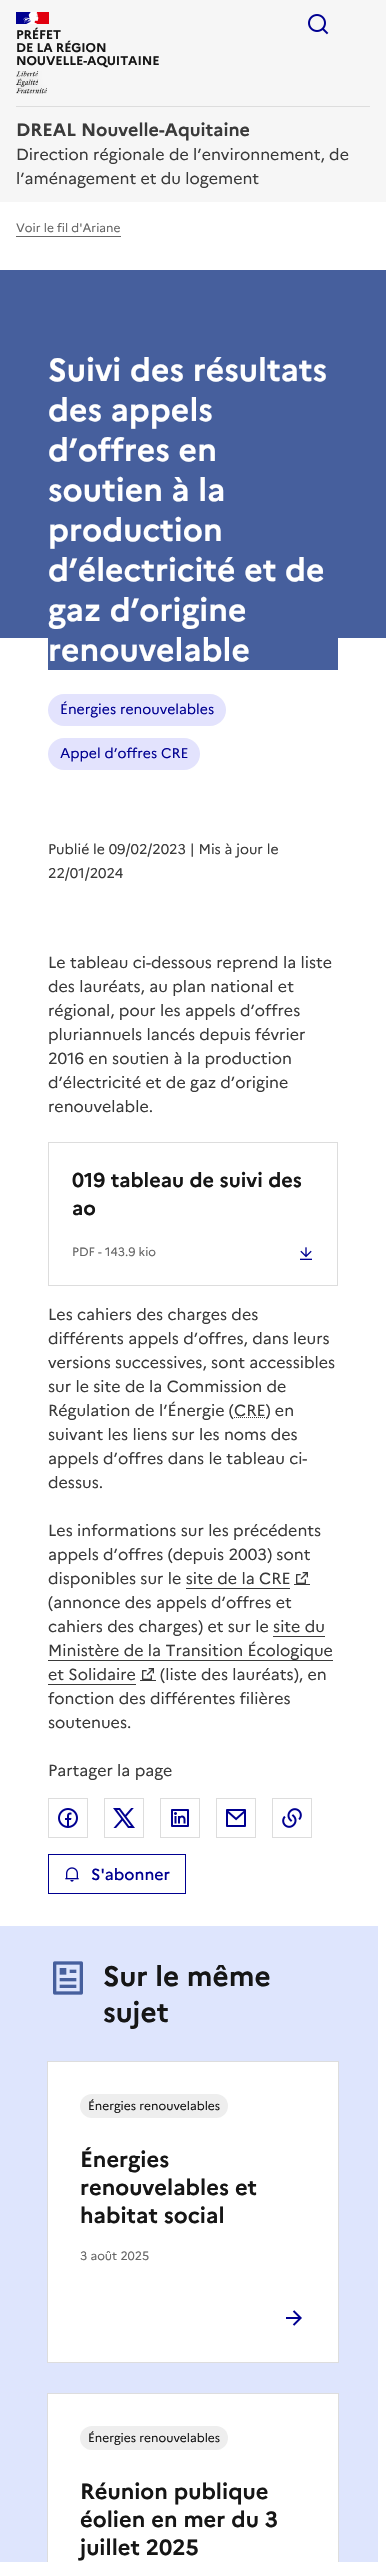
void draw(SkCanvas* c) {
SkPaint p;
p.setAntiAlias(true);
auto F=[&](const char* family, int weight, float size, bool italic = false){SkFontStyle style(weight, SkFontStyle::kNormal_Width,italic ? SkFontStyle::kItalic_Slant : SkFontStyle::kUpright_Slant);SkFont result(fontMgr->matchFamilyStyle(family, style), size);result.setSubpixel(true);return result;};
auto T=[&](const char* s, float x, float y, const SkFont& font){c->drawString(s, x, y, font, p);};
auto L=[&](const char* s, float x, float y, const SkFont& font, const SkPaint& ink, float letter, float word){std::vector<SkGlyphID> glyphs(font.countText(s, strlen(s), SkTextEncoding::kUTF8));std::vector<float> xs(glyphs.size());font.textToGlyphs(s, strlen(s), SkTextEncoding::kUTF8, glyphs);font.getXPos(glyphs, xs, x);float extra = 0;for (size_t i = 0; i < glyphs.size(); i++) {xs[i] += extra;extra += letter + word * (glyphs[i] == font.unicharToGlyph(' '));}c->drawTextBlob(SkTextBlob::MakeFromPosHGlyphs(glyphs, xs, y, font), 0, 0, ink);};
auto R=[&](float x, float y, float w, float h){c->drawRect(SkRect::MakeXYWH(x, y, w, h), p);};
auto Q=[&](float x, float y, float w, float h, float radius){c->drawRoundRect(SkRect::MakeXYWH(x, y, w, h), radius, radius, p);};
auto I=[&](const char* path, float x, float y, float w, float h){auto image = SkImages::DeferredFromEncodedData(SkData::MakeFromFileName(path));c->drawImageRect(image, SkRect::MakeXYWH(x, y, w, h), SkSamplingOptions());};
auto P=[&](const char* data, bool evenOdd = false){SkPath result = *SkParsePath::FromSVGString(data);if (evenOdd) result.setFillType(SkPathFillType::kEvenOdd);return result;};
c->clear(0xffffffff);
p.setColor(0xfff6f6f6);
R(0,0,386,202);
I("1.png",308,14,21,21);
p.setColor(0xff000091);
R(16,12,16,12);
p.setColor(0xffe1000f);
R(34,12,15,12);
I("2.png",23,12,16,12);
auto f1 = F("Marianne",700,12.6);
p.setColor(0xff161616);
L("PRÉFET",16,39,f1,p,-.1,0);
L("DE LA RÉGION",16,52,f1,p,-.1,0);
L("NOUVELLE-AQUITAINE",16,65,f1,p,-.1,0);
I("3.png",16,71,31,23);
p.setColor(0xffdddddd);
R(16,106,354,1);
auto f2 = F("Marianne",700,18);
p.setColor(0xff3a3a3a);
T("DREAL Nouvelle-Aquitaine",16,136,f2);
auto f3 = F("Marianne",400,16);
T("Direction régionale de l’environnement, de",16,160,f3);
T("l’aménagement et du logement",16,184,f3);
p.setColor(0xff666666);
R(16,236,105,1);
auto f4 = F("Marianne",400,12);
T("Voir le fil d'Ariane",16,232,f4);
p.setColor(0xff465f9d);
R(0,270,386,368);
R(48,638,290,32);
auto f5 = F("Marianne",700,32);
p.setColor(0xffffffff);
T("Suivi des résultats",48,381,f5);
T("des appels",48,421,f5);
T("d’offres en",48,461,f5);
T("soutien à la",48,501,f5);
T("production",48,541,f5);
T("d’électricité et de",48,581,f5);
T("gaz d’origine",48,621,f5);
T("renouvelable",48,661,f5);
p.setColor(0xffe3e3fd);
Q(48,694,178,32,16);
auto f6 = F("Marianne",400,14);
p.setColor(0xff000091);
T("Énergies renouvelables",60,714,f6);
p.setColor(0xffe3e3fd);
Q(48,738,152,32,16);
p.setColor(0xff000091);
T("Appel d’offres CRE",60,758,f6);
p.setColor(0xff3a3a3a);
T("Publié le 09/02/2023 | Mis à jour le",48,854,f6);
T("22/01/2024",48,878,f6);
T("Le tableau ci-dessous reprend la liste",48,968,f3);
T("des lauréats, au plan national et",48,992,f3);
T("régional, pour les appels d’offres",48,1016,f3);
T("pluriannuels lancés depuis février",48,1040,f3);
T("2016 en soutien à la production",48,1064,f3);
T("d’électricité et de gaz d’origine",48,1088,f3);
T("renouvelable.",48,1112,f3);
p.setStroke(true);
p.setStrokeWidth(1);
p.setColor(0xffdddddd);
c->drawRect(SkRect::MakeXYWH(48.5,1142.5,289,143),p);
auto f7 = F("Marianne",700,20);
p.setStroke(false);
p.setColor(0xff161616);
T("019 tableau de suivi des",72,1187,f7);
T("ao",72,1215,f7);
p.setColor(0xff666666);
T("PDF - 143.9 kio",72,1256,f4);
I("4.png",300,1247,12,13);
p.setColor(0xff3a3a3a);
T("Les cahiers des charges des",48,1320,f3);
T("différents appels d’offres, dans leurs",48,1344,f3);
T("versions successives, sont accessibles",48,1368,f3);
T("sur le site de la Commission de",48,1392,f3);
T("Régulation de l’Énergie (CRE) en",48,1416,f3);
p.setStroke(true);
p.setPathEffect(SkDashPathEffect::Make({{1,1}}, 0));
c->drawPath(P("M234 1417.5h31.5"),p);
p.setPathEffect(nullptr);
p.setStroke(false);
T("suivant les liens sur les noms des",48,1440,f3);
T("appels d’offres dans le tableau ci-",48,1464,f3);
T("dessus.",48,1488,f3);
T("Les informations sur les précédents",48,1536,f3);
T("appels d’offres (depuis 2003) sont",48,1560,f3);
T("disponibles sur le site de la CRE",48,1584,f3);
R(186,1588,104,1);
R(294,1584,16,1);
I("5.png",296,1572,12,12);
T("(annonce des appels d’offres et",48,1608,f3);
T("cahiers des charges) et sur le site du",48,1632,f3);
R(273,1636,52,1);
R(48,1660,285,1);
R(48,1684,88,1);
R(140,1680,16,1);
T("Ministère de la Transition Écologique",48,1656,f3);
T("et Solidaire",48,1680,f3);
I("5.png",142,1668,12,12);
T("(liste des lauréats), en",160,1680,f3);
T("fonction des différentes filières",48,1704,f3);
T("soutenues.",48,1728,f3);
T("Partager la page",48,1776,f3);
p.setStroke(true);
p.setColor(0xffdddddd);
c->drawRect(SkRect::MakeXYWH(48.5,1798.5,39,39),p);
I("6.png",58,1808,20,20);
c->drawRect(SkRect::MakeXYWH(104.5,1798.5,39,39),p);
I("7.png",113,1808,22,20);
c->drawRect(SkRect::MakeXYWH(160.5,1798.5,39,39),p);
I("8.png",171,1809,18,18);
c->drawRect(SkRect::MakeXYWH(216.5,1798.5,39,39),p);
I("9.png",226,1809,20,18);
c->drawRect(SkRect::MakeXYWH(272.5,1798.5,39,39),p);
I("10.png",282,1808,20,20);
p.setColor(0xff000091);
c->drawRect(SkRect::MakeXYWH(48.5,1854.5,137,39),p);
I("11.png",65,1867,14,15);
auto f8 = F("Marianne",500,16);
p.setStroke(false);
T("S'abonner",91,1880,f8);
p.setColor(0xffdee5fd);
R(0,1926,378,636);
I("12.png",53,1961,30,34);
auto f9 = F("Marianne",700,28);
p.setColor(0xff161616);
T("Sur le même",103,1986,f9);
T("sujet",103,2022,f9);
p.setStroke(true);
p.setColor(0xffdddddd);
c->drawRect(SkRect::MakeXYWH(47.5,2061.5,291,301),p);
p.setStroke(false);
p.setColor(0xffffffff);
R(48,2062,290,300);
p.setColor(0xffeeeeee);
Q(80,2094,148,24,12);
p.setColor(0xff161616);
T("Énergies renouvelables",88,2110,f4);
auto f10 = F("Marianne",700,22);
T("Énergies",80,2167,f10);
T("renouvelables et",80,2195,f10);
T("habitat social",80,2223,f10);
p.setColor(0xff666666);
T("3 août 2025",80,2260,f4);
I("13.png",286,2310,16,16);
p.setStroke(true);
p.setColor(0xffdddddd);
c->drawRect(SkRect::MakeXYWH(47.5,2393.5,291,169),p);
p.setStroke(false);
p.setColor(0xffffffff);
R(48,2394,290,168);
p.setColor(0xffeeeeee);
Q(80,2426,148,24,12);
p.setColor(0xff161616);
T("Énergies renouvelables",88,2442,f4);
T("Réunion publique",80,2499,f10);
T("éolien en mer du 3",80,2527,f10);
T("juillet 2025",80,2555,f10);
}
